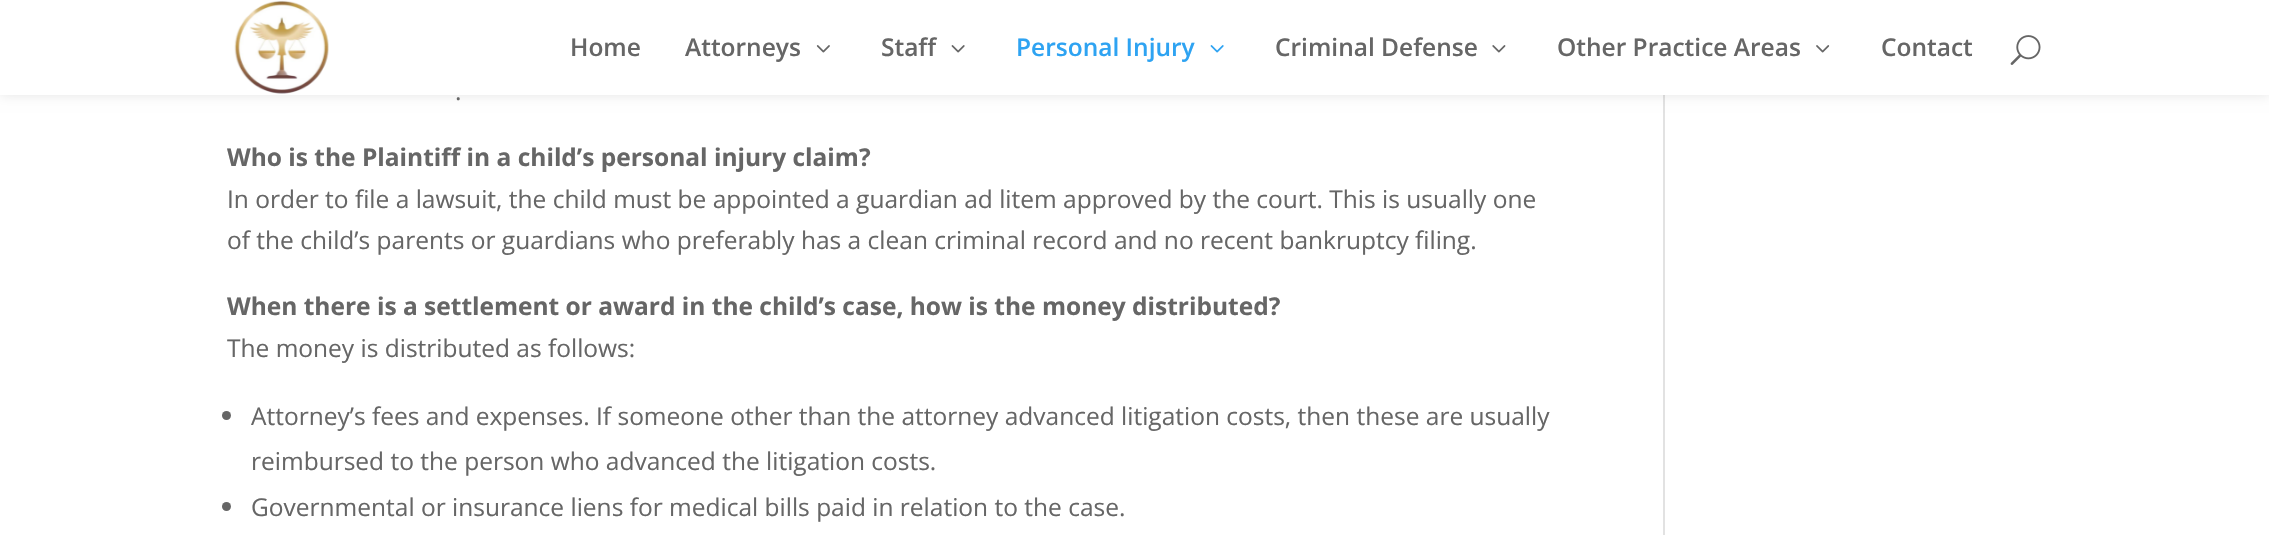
void draw(SkCanvas* c) {
SkPaint p;
p.setAntiAlias(true);
auto F=[&](const char* family, int weight, float size, bool italic = false){SkFontStyle style(weight, SkFontStyle::kNormal_Width,italic ? SkFontStyle::kItalic_Slant : SkFontStyle::kUpright_Slant);SkFont result(fontMgr->matchFamilyStyle(family, style), size);result.setSubpixel(true);return result;};
auto T=[&](const char* s, float x, float y, const SkFont& font){c->drawString(s, x, y, font, p);};
auto R=[&](float x, float y, float w, float h){c->drawRect(SkRect::MakeXYWH(x, y, w, h), p);};
auto I=[&](const char* path, float x, float y, float w, float h){auto image = SkImages::DeferredFromEncodedData(SkData::MakeFromFileName(path));c->drawImageRect(image, SkRect::MakeXYWH(x, y, w, h), SkSamplingOptions());};
c->clear(0xffffffff);
p.setColor(0xffe2e2e2);
R(1663,95,2,440);
p.setColor(0x1a000000);
p.setMaskFilter(SkMaskFilter::MakeBlur(kNormal_SkBlurStyle, 6));
c->drawRect(SkRect::MakeXYWH(0,0,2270,95),p);
p.setMaskFilter(nullptr);
p.setColor(0xffffffff);
R(0,0,2269,95);
I("1.png",234,0,95,94);
auto f1 = F("Open Sans",600,24.5);
p.setColor(0xff666666);
T("Home",570,56,f1);
T("Attorneys",685,56,f1);
I("2.png",816,45,14,8);
T("Staff",881,56,f1);
I("3.png",951,45,14,8);
p.setColor(0xff2ea3f2);
T("Personal Injury",1016,56,f1);
I("4.png",1210,45,14,8);
p.setColor(0xff666666);
T("Criminal Defense",1275,56,f1);
I("5.png",1492,45,14,8);
T("Other Practice Areas",1557,56,f1);
I("6.png",1816,45,14,8);
T("Contact",1881,56,f1);
I("7.png",2010,35,31,30);
auto f2 = F("Open Sans",400,24.5);
T(".",455,100,f2);
auto f3 = F("Open Sans",700,24.5);
T("Who is the Plaintiff in a child’s personal injury claim?",227,166,f3);
T("In order to file a lawsuit, the child must be appointed a guardian ad litem approved by the court. This is usually one",227,208,f2);
T("of the child’s parents or guardians who preferably has a clean criminal record and no recent bankruptcy filing.",227,249,f2);
T("When there is a settlement or award in the child’s case, how is the money distributed?",227,315,f3);
T("The money is distributed as follows:",227,357,f2);
c->drawCircle(226.5,415.5,4.5,p);
T("Attorney’s fees and expenses. If someone other than the attorney advanced litigation costs, then these are usually",251,425,f2);
T("reimbursed to the person who advanced the litigation costs.",251,470,f2);
c->drawCircle(226.5,506.5,4.5,p);
T("Governmental or insurance liens for medical bills paid in relation to the case.",251,516,f2);
}
